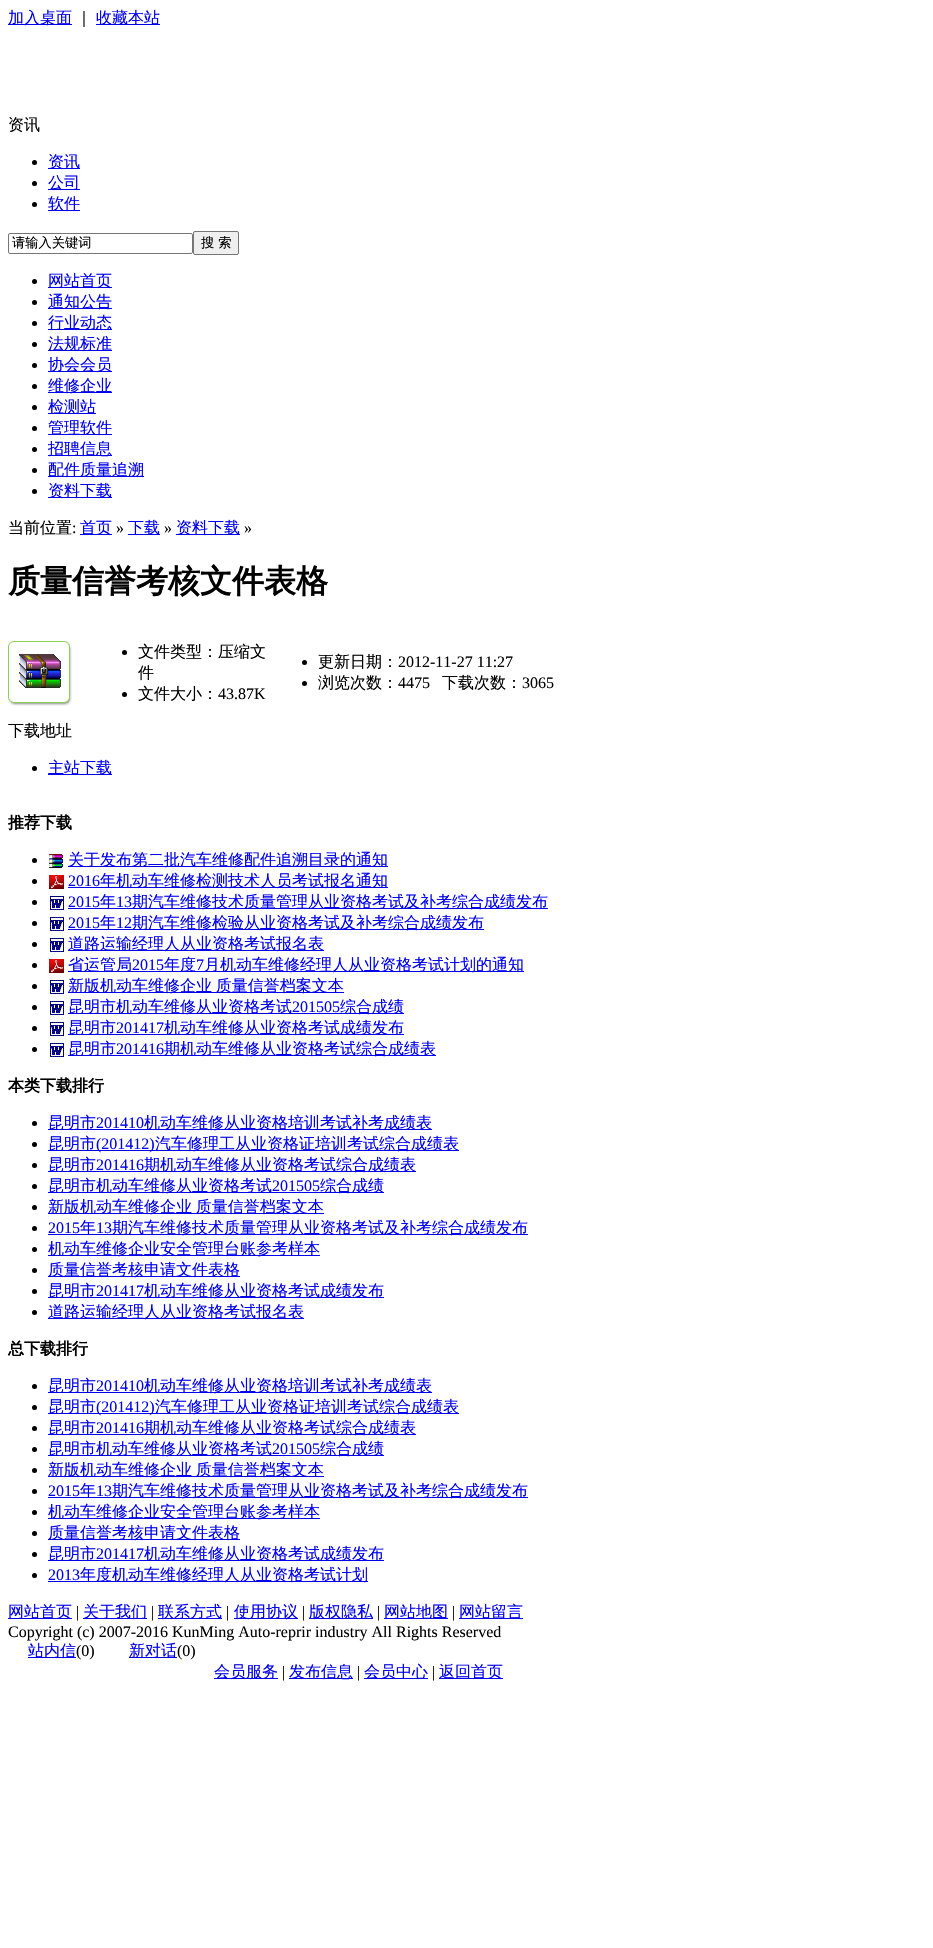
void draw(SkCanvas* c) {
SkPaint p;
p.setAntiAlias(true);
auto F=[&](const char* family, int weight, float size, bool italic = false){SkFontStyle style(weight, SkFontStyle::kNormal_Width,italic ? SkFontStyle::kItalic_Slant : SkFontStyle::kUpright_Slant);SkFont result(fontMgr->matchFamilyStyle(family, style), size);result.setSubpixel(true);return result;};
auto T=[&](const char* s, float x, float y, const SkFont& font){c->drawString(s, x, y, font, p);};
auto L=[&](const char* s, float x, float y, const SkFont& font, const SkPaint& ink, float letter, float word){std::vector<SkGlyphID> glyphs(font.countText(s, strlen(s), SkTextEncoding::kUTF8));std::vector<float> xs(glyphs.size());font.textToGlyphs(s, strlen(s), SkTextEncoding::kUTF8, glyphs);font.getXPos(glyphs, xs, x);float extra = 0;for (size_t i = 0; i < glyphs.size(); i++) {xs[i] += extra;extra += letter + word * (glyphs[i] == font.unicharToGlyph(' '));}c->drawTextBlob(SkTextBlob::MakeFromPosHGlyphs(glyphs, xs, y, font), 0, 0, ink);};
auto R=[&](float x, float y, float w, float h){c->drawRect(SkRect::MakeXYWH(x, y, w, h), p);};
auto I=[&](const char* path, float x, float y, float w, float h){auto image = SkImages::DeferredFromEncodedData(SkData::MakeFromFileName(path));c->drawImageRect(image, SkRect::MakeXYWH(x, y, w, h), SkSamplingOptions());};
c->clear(0xffffffff);
p.setColor(0xff0000ee);
R(8,24,64,1);
auto f1 = F("WenQuanYi Zen Hei",500,16);
T("加入桌面",8,23,f1);
p.setColor(0xff000000);
T("｜",76,23,f1);
p.setColor(0xff0000ee);
R(96,24,64,1);
T("收藏本站",96,23,f1);
p.setColor(0xff000000);
T("资讯",8,130,f1);
c->drawCircle(34.5,162.5,2.5,p);
p.setColor(0xff0000ee);
R(48,168,32,1);
T("资讯",48,167,f1);
p.setColor(0xff000000);
c->drawCircle(34.5,183.5,2.5,p);
p.setColor(0xff0000ee);
R(48,189,32,1);
T("公司",48,188,f1);
p.setColor(0xff000000);
c->drawCircle(34.5,204.5,2.5,p);
p.setColor(0xff0000ee);
R(48,210,32,1);
T("软件",48,209,f1);
p.setStroke(true);
p.setStrokeWidth(1);
p.setColor(0xff767676);
c->drawRoundRect(SkRect::MakeXYWH(8.5,233.5,184,20),1.5,1.5,p);
auto f2 = F("WenQuanYi Zen Hei",500,13.25);
p.setStroke(false);
p.setColor(0xff000000);
T("请输入关键词",12,247,f2);
p.setColor(0xffefefef);
c->drawRoundRect(SkRect::MakeXYWH(193.5,231.5,45,23),1.5,1.5,p);
p.setStroke(true);
p.setColor(0xff767676);
c->drawRoundRect(SkRect::MakeXYWH(193.5,231.5,45,23),1.5,1.5,p);
p.setStroke(false);
p.setColor(0xff000000);
T("搜 索",201,247,f2);
c->drawCircle(34.5,281.5,2.5,p);
p.setColor(0xff0000ee);
R(48,287,64,1);
T("网站首页",48,286,f1);
p.setColor(0xff000000);
c->drawCircle(34.5,302.5,2.5,p);
p.setColor(0xff0000ee);
R(48,308,64,1);
T("通知公告",48,307,f1);
p.setColor(0xff000000);
c->drawCircle(34.5,323.5,2.5,p);
p.setColor(0xff0000ee);
R(48,329,64,1);
T("行业动态",48,328,f1);
p.setColor(0xff000000);
c->drawCircle(34.5,344.5,2.5,p);
p.setColor(0xff0000ee);
R(48,350,64,1);
T("法规标准",48,349,f1);
p.setColor(0xff000000);
c->drawCircle(34.5,365.5,2.5,p);
p.setColor(0xff0000ee);
R(48,371,64,1);
T("协会会员",48,370,f1);
p.setColor(0xff000000);
c->drawCircle(34.5,386.5,2.5,p);
p.setColor(0xff0000ee);
R(48,392,64,1);
T("维修企业",48,391,f1);
p.setColor(0xff000000);
c->drawCircle(34.5,407.5,2.5,p);
p.setColor(0xff0000ee);
R(48,413,48,1);
T("检测站",48,412,f1);
p.setColor(0xff000000);
c->drawCircle(34.5,428.5,2.5,p);
p.setColor(0xff0000ee);
R(48,434,64,1);
T("管理软件",48,433,f1);
p.setColor(0xff000000);
c->drawCircle(34.5,449.5,2.5,p);
p.setColor(0xff0000ee);
R(48,455,64,1);
T("招聘信息",48,454,f1);
p.setColor(0xff000000);
c->drawCircle(34.5,470.5,2.5,p);
p.setColor(0xff0000ee);
R(48,476,96,1);
T("配件质量追溯",48,475,f1);
p.setColor(0xff000000);
c->drawCircle(34.5,491.5,2.5,p);
p.setColor(0xff0000ee);
R(48,497,64,1);
T("资料下载",48,496,f1);
p.setColor(0xff000000);
T("当前位置",8,533,f1);
auto f3 = F("Liberation Serif",400,16);
T(":",72,533,f3);
p.setColor(0xff0000ee);
R(80,534,32,1);
T("首页",80,533,f1);
p.setColor(0xff000000);
T("»",116,533,f3);
p.setColor(0xff0000ee);
R(128,534,32,1);
T("下载",128,533,f1);
p.setColor(0xff000000);
T("»",164,533,f3);
p.setColor(0xff0000ee);
R(176,534,64,1);
T("资料下载",176,533,f1);
p.setColor(0xff000000);
T("»",244,533,f3);
auto f4 = F("WenQuanYi Zen Hei",700,32);
T("质量信誉考核文件表格",8,592,f4);
I("1.png",8,641,64,65);
c->drawCircle(124.5,652.5,2.5,p);
T("文件类型：压缩文",138,657,f1);
T("件",138,678,f1);
c->drawCircle(124.5,694.5,2.5,p);
T("文件大小：",138,699,f1);
T("43.87K",218,699,f3);
c->drawCircle(304.5,662.5,2.5,p);
T("更新日期：",318,667,f1);
T("2012-11-27 11:27",398,667,f3);
c->drawCircle(304.5,683.5,2.5,p);
T("浏览次数：",318,688,f1);
T("4475",398,688,f3);
T("下载次数：",442,688,f1);
T("3065",522,688,f3);
T("下载地址",8,736,f1);
c->drawCircle(34.5,768.5,2.5,p);
p.setColor(0xff0000ee);
R(48,774,64,1);
T("主站下载",48,773,f1);
auto f5 = F("WenQuanYi Zen Hei",700,16);
p.setColor(0xff000000);
T("推荐下载",8,828,f5);
c->drawCircle(34.5,860.5,2.5,p);
I("2.png",49,854,14,14);
p.setColor(0xff0000ee);
R(68,866,320,1);
T("关于发布第二批汽车维修配件追溯目录的通知",68,865,f1);
p.setColor(0xff000000);
c->drawCircle(34.5,881.5,2.5,p);
I("3.png",49,875,15,14);
p.setColor(0xff0000ee);
T("2016",68,886,f3);
R(68,887,320,1);
T("年机动车维修检测技术人员考试报名通知",100,886,f1);
p.setColor(0xff000000);
c->drawCircle(34.5,902.5,2.5,p);
I("4.png",50,896,14,14);
p.setColor(0xff0000ee);
T("2015",68,907,f3);
R(68,908,480,1);
T("年",100,907,f1);
T("13",116,907,f3);
T("期汽车维修技术质量管理从业资格考试及补考综合成绩发布",132,907,f1);
p.setColor(0xff000000);
c->drawCircle(34.5,923.5,2.5,p);
I("4.png",50,917,14,14);
p.setColor(0xff0000ee);
T("2015",68,928,f3);
R(68,929,416,1);
T("年",100,928,f1);
T("12",116,928,f3);
T("期汽车维修检验从业资格考试及补考综合成绩发布",132,928,f1);
p.setColor(0xff000000);
c->drawCircle(34.5,944.5,2.5,p);
I("4.png",50,938,14,14);
p.setColor(0xff0000ee);
R(68,950,256,1);
T("道路运输经理人从业资格考试报名表",68,949,f1);
p.setColor(0xff000000);
c->drawCircle(34.5,965.5,2.5,p);
I("3.png",49,959,15,14);
p.setColor(0xff0000ee);
R(68,971,456,1);
T("省运管局",68,970,f1);
T("2015",132,970,f3);
T("年度",164,970,f1);
T("7",196,970,f3);
T("月机动车维修经理人从业资格考试计划的通知",204,970,f1);
p.setColor(0xff000000);
c->drawCircle(34.5,986.5,2.5,p);
I("4.png",50,980,14,14);
p.setColor(0xff0000ee);
R(68,992,276,1);
L("新版机动车维修企业 质量信誉档案文本",68,991,f1,p,0,-1);
p.setColor(0xff000000);
c->drawCircle(34.5,1007.5,2.5,p);
I("4.png",50,1001,14,14);
p.setColor(0xff0000ee);
R(68,1013,336,1);
T("昆明市机动车维修从业资格考试",68,1012,f1);
T("201505",292,1012,f3);
T("综合成绩",340,1012,f1);
p.setColor(0xff000000);
c->drawCircle(34.5,1028.5,2.5,p);
I("4.png",50,1022,14,14);
p.setColor(0xff0000ee);
R(68,1034,336,1);
T("昆明市",68,1033,f1);
T("201417",116,1033,f3);
T("机动车维修从业资格考试成绩发布",164,1033,f1);
p.setColor(0xff000000);
c->drawCircle(34.5,1049.5,2.5,p);
I("4.png",50,1043,14,14);
p.setColor(0xff0000ee);
R(68,1055,368,1);
T("昆明市",68,1054,f1);
T("201416",116,1054,f3);
T("期机动车维修从业资格考试综合成绩表",164,1054,f1);
p.setColor(0xff000000);
T("本类下载排行",8,1091,f5);
c->drawCircle(34.5,1123.5,2.5,p);
p.setColor(0xff0000ee);
R(48,1129,384,1);
T("昆明市",48,1128,f1);
T("201410",96,1128,f3);
T("机动车维修从业资格培训考试补考成绩表",144,1128,f1);
p.setColor(0xff000000);
c->drawCircle(34.5,1144.5,2.5,p);
p.setColor(0xff0000ee);
R(48,1150,411,1);
T("昆明市",48,1149,f1);
T("(201412)",96,1149,f3);
T("汽车修理工从业资格证培训考试综合成绩表",155,1149,f1);
p.setColor(0xff000000);
c->drawCircle(34.5,1165.5,2.5,p);
p.setColor(0xff0000ee);
R(48,1171,368,1);
T("昆明市",48,1170,f1);
T("201416",96,1170,f3);
T("期机动车维修从业资格考试综合成绩表",144,1170,f1);
p.setColor(0xff000000);
c->drawCircle(34.5,1186.5,2.5,p);
p.setColor(0xff0000ee);
R(48,1192,336,1);
T("昆明市机动车维修从业资格考试",48,1191,f1);
T("201505",272,1191,f3);
T("综合成绩",320,1191,f1);
p.setColor(0xff000000);
c->drawCircle(34.5,1207.5,2.5,p);
p.setColor(0xff0000ee);
R(48,1213,276,1);
L("新版机动车维修企业 质量信誉档案文本",48,1212,f1,p,0,-1);
p.setColor(0xff000000);
c->drawCircle(34.5,1228.5,2.5,p);
p.setColor(0xff0000ee);
T("2015",48,1233,f3);
R(48,1234,480,1);
T("年",80,1233,f1);
T("13",96,1233,f3);
T("期汽车维修技术质量管理从业资格考试及补考综合成绩发布",112,1233,f1);
p.setColor(0xff000000);
c->drawCircle(34.5,1249.5,2.5,p);
p.setColor(0xff0000ee);
R(48,1255,272,1);
T("机动车维修企业安全管理台账参考样本",48,1254,f1);
p.setColor(0xff000000);
c->drawCircle(34.5,1270.5,2.5,p);
p.setColor(0xff0000ee);
R(48,1276,192,1);
T("质量信誉考核申请文件表格",48,1275,f1);
p.setColor(0xff000000);
c->drawCircle(34.5,1291.5,2.5,p);
p.setColor(0xff0000ee);
R(48,1297,336,1);
T("昆明市",48,1296,f1);
T("201417",96,1296,f3);
T("机动车维修从业资格考试成绩发布",144,1296,f1);
p.setColor(0xff000000);
c->drawCircle(34.5,1312.5,2.5,p);
p.setColor(0xff0000ee);
R(48,1318,256,1);
T("道路运输经理人从业资格考试报名表",48,1317,f1);
p.setColor(0xff000000);
T("总下载排行",8,1354,f5);
c->drawCircle(34.5,1386.5,2.5,p);
p.setColor(0xff0000ee);
R(48,1392,384,1);
T("昆明市",48,1391,f1);
T("201410",96,1391,f3);
T("机动车维修从业资格培训考试补考成绩表",144,1391,f1);
p.setColor(0xff000000);
c->drawCircle(34.5,1407.5,2.5,p);
p.setColor(0xff0000ee);
R(48,1413,411,1);
T("昆明市",48,1412,f1);
T("(201412)",96,1412,f3);
T("汽车修理工从业资格证培训考试综合成绩表",155,1412,f1);
p.setColor(0xff000000);
c->drawCircle(34.5,1428.5,2.5,p);
p.setColor(0xff0000ee);
R(48,1434,368,1);
T("昆明市",48,1433,f1);
T("201416",96,1433,f3);
T("期机动车维修从业资格考试综合成绩表",144,1433,f1);
p.setColor(0xff000000);
c->drawCircle(34.5,1449.5,2.5,p);
p.setColor(0xff0000ee);
R(48,1455,336,1);
T("昆明市机动车维修从业资格考试",48,1454,f1);
T("201505",272,1454,f3);
T("综合成绩",320,1454,f1);
p.setColor(0xff000000);
c->drawCircle(34.5,1470.5,2.5,p);
p.setColor(0xff0000ee);
R(48,1476,276,1);
L("新版机动车维修企业 质量信誉档案文本",48,1475,f1,p,0,-1);
p.setColor(0xff000000);
c->drawCircle(34.5,1491.5,2.5,p);
p.setColor(0xff0000ee);
T("2015",48,1496,f3);
R(48,1497,480,1);
T("年",80,1496,f1);
T("13",96,1496,f3);
T("期汽车维修技术质量管理从业资格考试及补考综合成绩发布",112,1496,f1);
p.setColor(0xff000000);
c->drawCircle(34.5,1512.5,2.5,p);
p.setColor(0xff0000ee);
R(48,1518,272,1);
T("机动车维修企业安全管理台账参考样本",48,1517,f1);
p.setColor(0xff000000);
c->drawCircle(34.5,1533.5,2.5,p);
p.setColor(0xff0000ee);
R(48,1539,192,1);
T("质量信誉考核申请文件表格",48,1538,f1);
p.setColor(0xff000000);
c->drawCircle(34.5,1554.5,2.5,p);
p.setColor(0xff0000ee);
R(48,1560,336,1);
T("昆明市",48,1559,f1);
T("201417",96,1559,f3);
T("机动车维修从业资格考试成绩发布",144,1559,f1);
p.setColor(0xff000000);
c->drawCircle(34.5,1575.5,2.5,p);
p.setColor(0xff0000ee);
T("2013",48,1580,f3);
R(48,1581,320,1);
T("年度机动车维修经理人从业资格考试计划",80,1580,f1);
R(8,1618,64,1);
T("网站首页",8,1617,f1);
p.setColor(0xff000000);
T("|",76,1617,f3);
p.setColor(0xff0000ee);
R(83,1618,64,1);
T("关于我们",83,1617,f1);
p.setColor(0xff000000);
T("|",151,1617,f3);
p.setColor(0xff0000ee);
R(158,1618,64,1);
T("联系方式",158,1617,f1);
p.setColor(0xff000000);
T("|",226,1617,f3);
p.setColor(0xff0000ee);
R(234,1618,64,1);
T("使用协议",234,1617,f1);
p.setColor(0xff000000);
T("|",302,1617,f3);
p.setColor(0xff0000ee);
R(309,1618,64,1);
T("版权隐私",309,1617,f1);
p.setColor(0xff000000);
T("|",377,1617,f3);
p.setColor(0xff0000ee);
R(384,1618,64,1);
T("网站地图",384,1617,f1);
p.setColor(0xff000000);
T("|",452,1617,f3);
p.setColor(0xff0000ee);
R(459,1618,64,1);
T("网站留言",459,1617,f1);
p.setColor(0xff000000);
T("Copyright (c) 2007-2016 KunMing Auto-reprir industry All Rights Reserved",8,1637,f3);
p.setColor(0xff0000ee);
R(28,1657,48,1);
T("站内信",28,1656,f1);
p.setColor(0xff000000);
T("(0)",76,1656,f3);
p.setColor(0xff0000ee);
R(129,1657,48,1);
T("新对话",129,1656,f1);
p.setColor(0xff000000);
T("(0)",177,1656,f3);
p.setColor(0xff0000ee);
R(214,1678,64,1);
T("会员服务",214,1677,f1);
p.setColor(0xff000000);
T("|",282,1677,f3);
p.setColor(0xff0000ee);
R(289,1678,64,1);
T("发布信息",289,1677,f1);
p.setColor(0xff000000);
T("|",357,1677,f3);
p.setColor(0xff0000ee);
R(364,1678,64,1);
T("会员中心",364,1677,f1);
p.setColor(0xff000000);
T("|",432,1677,f3);
p.setColor(0xff0000ee);
R(439,1678,64,1);
T("返回首页",439,1677,f1);
}
